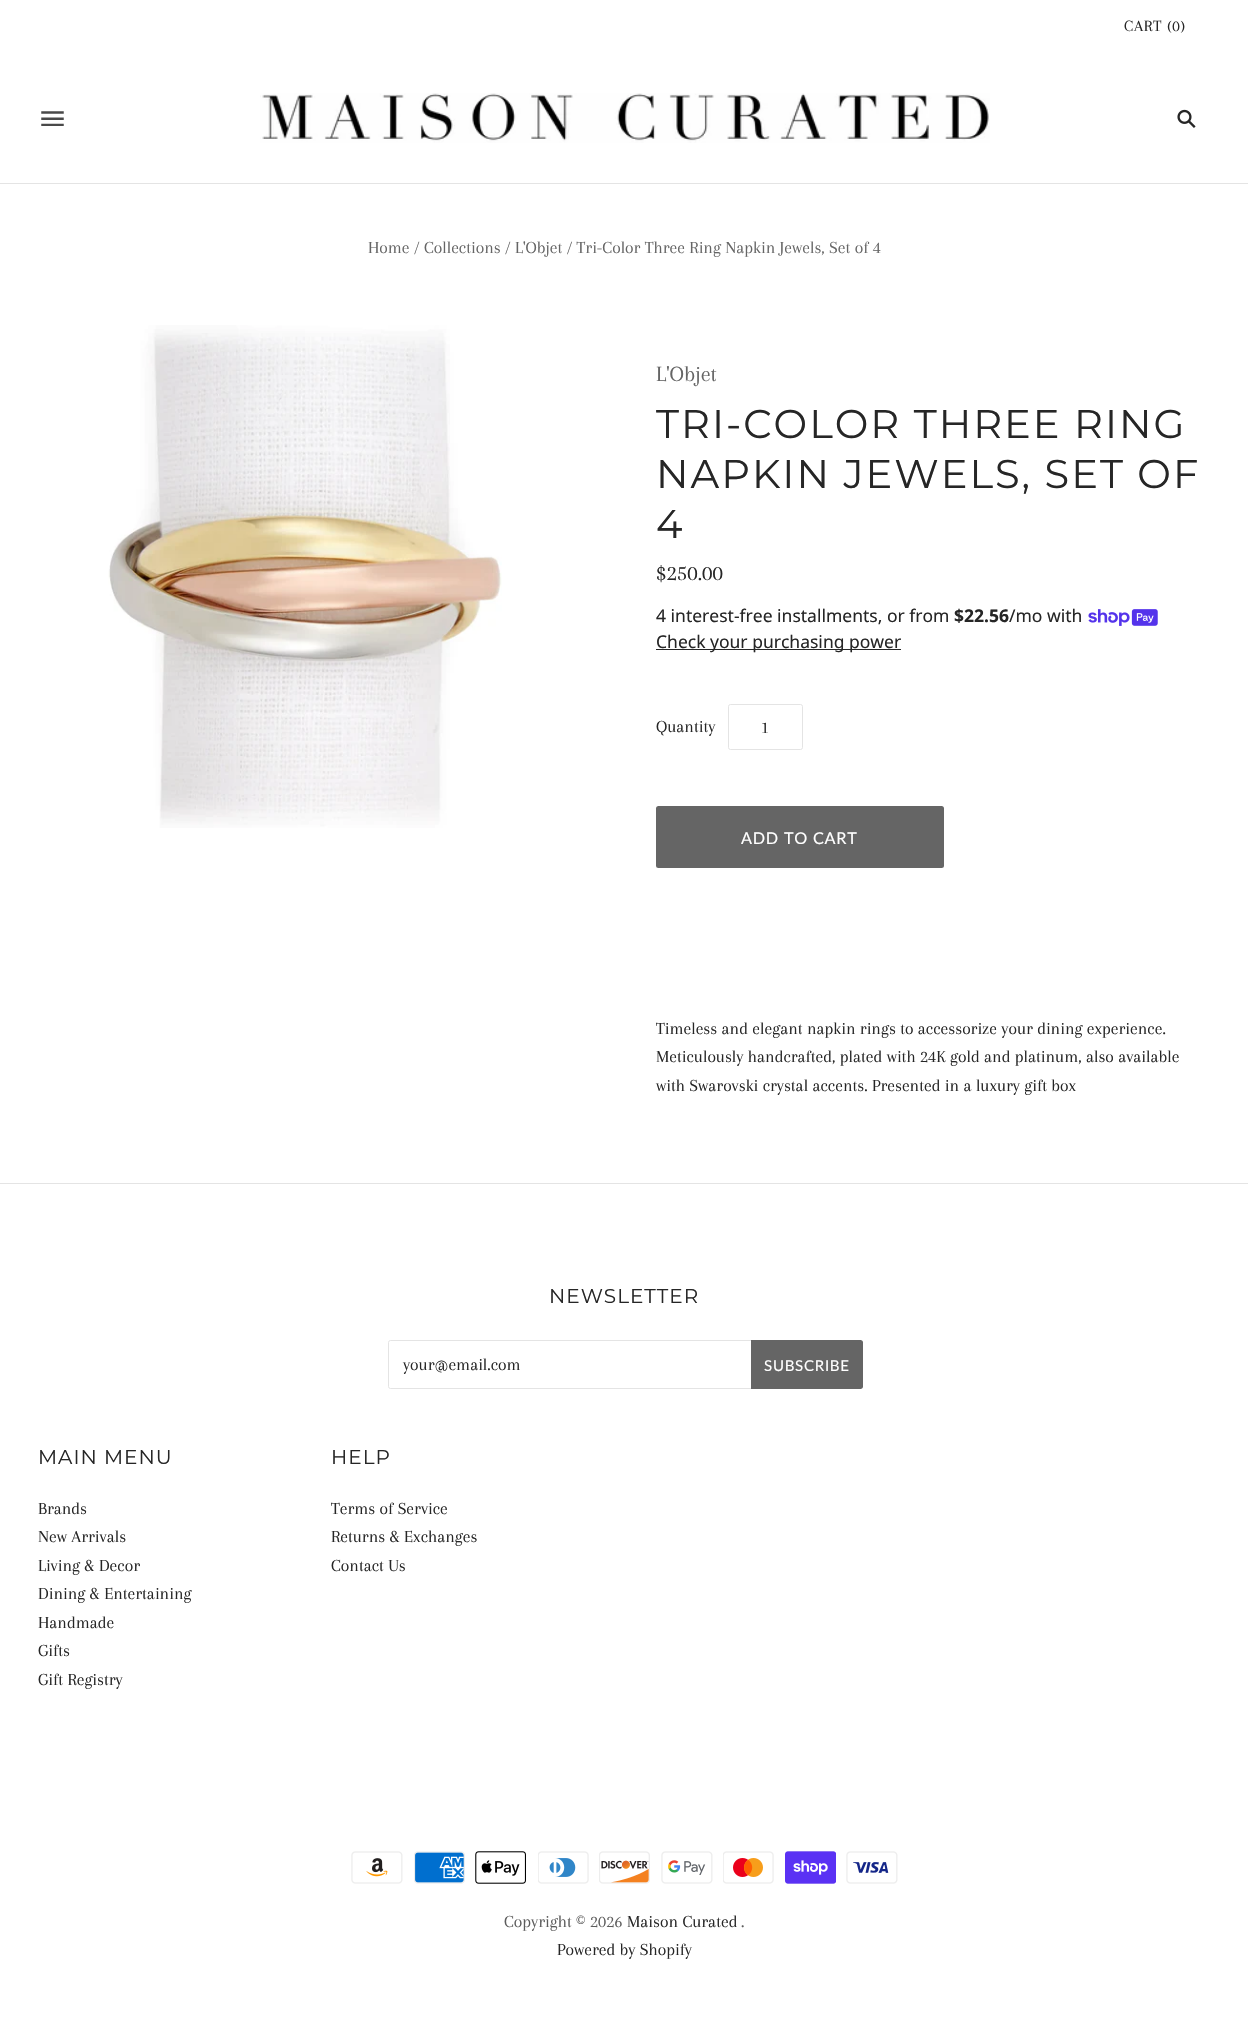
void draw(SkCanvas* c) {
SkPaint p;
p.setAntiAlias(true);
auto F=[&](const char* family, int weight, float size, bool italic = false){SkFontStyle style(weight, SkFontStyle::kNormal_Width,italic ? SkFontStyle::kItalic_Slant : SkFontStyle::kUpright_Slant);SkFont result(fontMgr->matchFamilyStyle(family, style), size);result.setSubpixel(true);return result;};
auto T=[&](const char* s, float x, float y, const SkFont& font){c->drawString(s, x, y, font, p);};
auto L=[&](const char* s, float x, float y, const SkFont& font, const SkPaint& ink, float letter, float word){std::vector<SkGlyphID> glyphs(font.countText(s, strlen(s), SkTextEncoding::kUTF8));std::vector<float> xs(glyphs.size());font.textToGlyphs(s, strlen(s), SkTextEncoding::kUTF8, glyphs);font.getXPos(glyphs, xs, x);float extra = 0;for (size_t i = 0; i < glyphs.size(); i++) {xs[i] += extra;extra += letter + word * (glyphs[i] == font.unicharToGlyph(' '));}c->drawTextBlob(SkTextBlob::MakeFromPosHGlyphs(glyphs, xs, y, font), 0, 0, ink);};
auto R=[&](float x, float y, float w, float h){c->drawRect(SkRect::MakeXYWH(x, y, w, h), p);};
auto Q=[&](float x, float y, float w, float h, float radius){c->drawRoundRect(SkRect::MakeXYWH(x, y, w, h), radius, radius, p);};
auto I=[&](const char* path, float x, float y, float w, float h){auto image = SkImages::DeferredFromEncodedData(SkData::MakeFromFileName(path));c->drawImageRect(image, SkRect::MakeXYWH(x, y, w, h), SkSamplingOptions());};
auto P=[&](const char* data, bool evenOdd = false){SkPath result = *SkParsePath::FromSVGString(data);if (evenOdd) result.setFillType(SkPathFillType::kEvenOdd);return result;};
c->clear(0xffffffff);
p.setColor(0xffe4e4e4);
R(0,183,1248,1);
auto f1 = F("Arapey",400,16.25);
p.setColor(0xff262626);
L("CART (0)",1124,31,f1,p,.75,0);
I("1.png",41,111,23,15);
I("2.png",260,93,730,50);
I("3.png",1177,109,19,19);
auto f2 = F("Arapey",400,17.5);
p.setColor(0xff656565);
T("Home / Collections / L'Objet / Tri-Color Three Ring Napkin Jewels, Set of 4",368,253,f2);
I("4.png",108,325,394,503);
auto f3 = F("Arapey",400,22.5);
T("L'Objet",656,381,f3);
auto f4 = F("Montserrat",400,40);
p.setColor(0xff262626);
L("TRI-COLOR THREE RING",656,438,f4,p,2,0);
L("NAPKIN JEWELS, SET OF",656,488,f4,p,2,0);
L("4",656,538,f4,p,2,0);
T("$250.00",656,580,f3);
auto f5 = F("Noto Sans",400,17.5);
T("4 interest-free installments, or from",656,622,f5);
auto f6 = F("Noto Sans",700,17.5);
T("$22.56",954,622,f6);
T("/mo with",1009,622,f5);
I("5.png",1088,609,70,17);
R(656,649,245,1);
T("Check your purchasing power",656,648,f5);
T("Quantity",656,732,f2);
p.setStroke(true);
p.setStrokeWidth(1);
p.setColor(0xffe4e4e4);
c->drawRoundRect(SkRect::MakeXYWH(728.5,704.5,74,45),2,2,p);
p.setStroke(false);
p.setColor(0xff262626);
T("1",761,733,f2);
p.setColor(0xff656565);
Q(656,806,288,62,2.5);
auto f7 = F("Lato",400,16.25);
p.setColor(0xffffffff);
L("ADD TO CART",741,844,f7,p,.75,0);
p.setColor(0xff262626);
T("Timeless and elegant napkin rings to accessorize your dining experience.",656,1034,f2);
T("Meticulously handcrafted, plated with 24K gold and platinum, also available",656,1062,f2);
T("with Swarovski crystal accents. Presented in a luxury gift box",656,1091,f2);
p.setColor(0xffe4e4e4);
R(0,1183,1248,1);
auto f8 = F("Montserrat",400,20);
p.setColor(0xff262626);
L("NEWSLETTER",549,1303,f8,p,1,0);
p.setStroke(true);
p.setColor(0xffe4e4e4);
c->drawRoundRect(SkRect::MakeXYWH(388.5,1340.5,424,48),2,2,p);
p.setStroke(false);
p.setColor(0xff262626);
T("your@email.com",403,1370,f2);
p.setColor(0xff656565);
c->drawPath(P("M751 1340h109.5c1.5 0 2.5 1 2.5 2.5v44c0 1.5-1 2.5-2.5 2.5h-109.5z"),p);
auto f9 = F("Lato",400,15);
p.setColor(0xffffffff);
L("SUBSCRIBE",764,1371,f9,p,.75,0);
p.setColor(0xff262626);
L("MAIN MENU",38,1464,f8,p,1,0);
T("Brands",38,1514,f2);
T("New Arrivals",38,1542,f2);
T("Living & Decor",38,1571,f2);
T("Dining & Entertaining",38,1599,f2);
T("Handmade",38,1628,f2);
T("Gifts",38,1656,f2);
T("Gift Registry",38,1685,f2);
L("HELP",331,1464,f8,p,1,0);
T("Terms of Service",331,1514,f2);
T("Returns & Exchanges",331,1542,f2);
T("Contact Us",331,1571,f2);
I("6.png",351,1851,52,33);
I("7.png",414,1851,51,33);
I("8.png",475,1851,51,33);
I("9.png",538,1851,51,33);
I("10.png",599,1851,51,33);
I("11.png",661,1851,52,33);
I("12.png",723,1851,51,33);
I("13.png",785,1851,51,33);
I("14.png",846,1851,52,33);
p.setColor(0xff5c5c5c);
T("Copyright © 2026",504,1927,f2);
p.setColor(0xff262626);
T("Maison Curated",627,1927,f2);
p.setColor(0xff5c5c5c);
T(".",741,1927,f2);
p.setColor(0xff262626);
T("Powered by Shopify",557,1955,f2);
}
